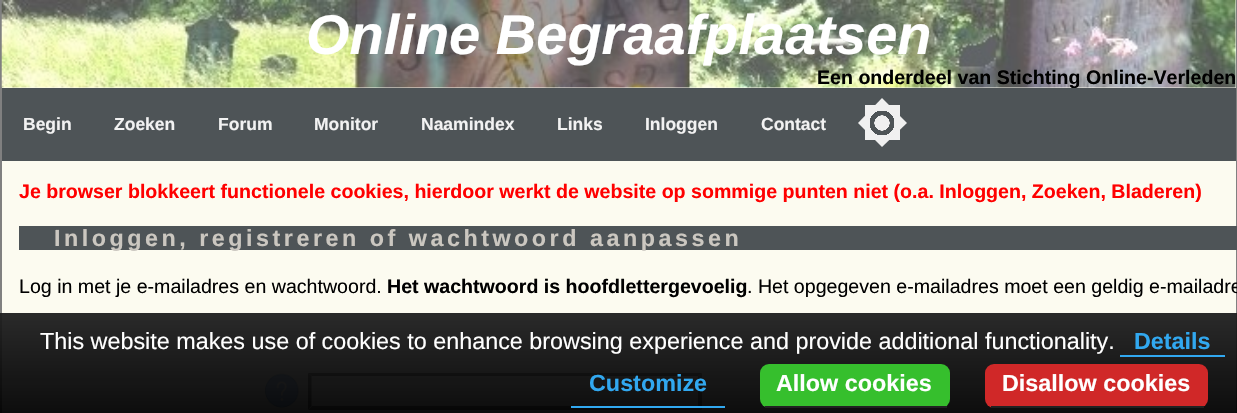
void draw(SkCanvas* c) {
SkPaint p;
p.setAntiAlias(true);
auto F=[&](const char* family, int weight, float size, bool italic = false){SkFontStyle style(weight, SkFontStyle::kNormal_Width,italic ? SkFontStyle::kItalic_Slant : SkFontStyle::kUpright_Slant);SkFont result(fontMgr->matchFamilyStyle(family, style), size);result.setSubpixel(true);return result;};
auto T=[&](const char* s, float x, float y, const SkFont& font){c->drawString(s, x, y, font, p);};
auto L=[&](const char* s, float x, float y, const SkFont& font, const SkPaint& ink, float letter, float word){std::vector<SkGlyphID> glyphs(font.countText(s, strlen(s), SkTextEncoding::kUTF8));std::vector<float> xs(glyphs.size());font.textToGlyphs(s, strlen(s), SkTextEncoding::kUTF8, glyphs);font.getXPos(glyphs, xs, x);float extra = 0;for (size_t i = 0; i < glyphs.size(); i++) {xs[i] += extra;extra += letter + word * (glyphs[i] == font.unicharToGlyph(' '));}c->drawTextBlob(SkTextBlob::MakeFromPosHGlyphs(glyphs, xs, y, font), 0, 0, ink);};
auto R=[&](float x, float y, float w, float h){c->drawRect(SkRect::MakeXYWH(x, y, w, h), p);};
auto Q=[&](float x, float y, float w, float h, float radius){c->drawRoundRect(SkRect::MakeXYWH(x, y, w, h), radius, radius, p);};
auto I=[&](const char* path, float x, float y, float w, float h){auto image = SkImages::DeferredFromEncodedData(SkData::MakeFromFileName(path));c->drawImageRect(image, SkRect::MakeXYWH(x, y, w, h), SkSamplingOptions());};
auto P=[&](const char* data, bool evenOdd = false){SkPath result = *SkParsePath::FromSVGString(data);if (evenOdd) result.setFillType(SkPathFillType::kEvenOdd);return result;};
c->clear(0xfffcfbf0);
p.setColor(0xff808080);
R(1236,0,1,413);
R(0,0,2,413);
I("1.png",1,0,1235,88);
auto f1 = F("Liberation Sans",700,56,true);
p.setColor(0xffffffff);
T("Online Begraafplaatsen",306,54,f1);
auto f2 = F("Liberation Sans",700,19.6);
p.setColor(0xff000000);
T("Een onderdeel van Stichting Online-Verleden",817,84,f2);
p.setColor(0xff4e5457);
R(2,88,1234,73);
auto f3 = F("Liberation Sans",700,17.5);
p.setColor(0xfff2f2f2);
T("Begin",23,130,f3);
T("Zoeken",114,130,f3);
T("Forum",218,130,f3);
T("Monitor",314,130,f3);
T("Naamindex",421,130,f3);
T("Links",557,130,f3);
T("Inloggen",645,130,f3);
T("Contact",761,130,f3);
{
const SkColor colors[] = {0xff4e5457,0xff4e5457,0xfff0f0f0};
const float stops[] = {0,.5,.5};
p.setShader(SkGradientShader::MakeRadial({882,123}, 25, colors, stops, 3, SkTileMode::kClamp));
p.setAlpha(255);
}
R(865,105,35,35);
{
const SkColor colors[] = {0xfff0f0f0,0x00f0f0f0,0x00f0f0f0,0xfff0f0f0};
const float stops[] = {.3,.31,.5,.5};
p.setShader(SkGradientShader::MakeRadial({882,123}, 25, colors, stops, 4, SkTileMode::kClamp));
p.setAlpha(255);
}
c->drawPath(P("M882 147l-24-24l24-25l25 25z"),p);
p.setShader(nullptr);
p.setColor(0xff4e5457);
c->drawPath(P("M874.5 122l-2.5-1.5h1.5z"),p);
p.setColor(0xffff0000);
T("Je browser blokkeert functionele cookies, hierdoor werkt de website op sommige punten niet (o.a. Inloggen, Zoeken, Bladeren)",19,198,f2);
p.setColor(0xff4e5457);
R(19,226,1218,24);
auto f4 = F("Liberation Sans",700,23.35);
p.setColor(0xffcbc7c0);
L("Inloggen, registreren of wachtwoord aanpassen",54,246,f4,p,3.5,0);
auto f5 = F("Liberation Sans",400,19.6);
p.setColor(0xff000000);
T("Log in met je e-mailadres en wachtwoord.",19,293,f5);
T("Het wachtwoord is hoofdlettergevoelig",387,293,f2);
T(". Het opgegeven e-mailadres moet een geldig e-mailadre",747,293,f5);
I("2.png",265,373,34,35);
p.setColor(0xff4f4f4f);
c->drawPath(P("M308 373h394l-4 3h-386z"),p);
p.setColor(0xff767676);
c->drawPath(P("M702 373v36.5l-4-3.5v-30z"),p);
c->drawPath(P("M702 410h-394l4-4h386z"),p);
p.setColor(0xff4f4f4f);
c->drawPath(P("M308 409.5v-36.5l3.5 3v30z"),p);
{
const SkColor colors[] = {0xf21e1e1e,0xf2000000};
const float stops[] = {0,1};
const SkPoint ends[] = {{624,313}, {624,413}};
p.setShader(SkGradientShader::MakeLinear(ends, colors, stops, 2, SkTileMode::kClamp));
p.setAlpha(255);
}
R(0,313,1237,100);
auto f6 = F("Liberation Sans",400,23.35);
p.setShader(nullptr);
p.setColor(0xffffffff);
T("This website makes use of cookies to enhance browsing experience and provide additional functionality.",40,349,f6);
p.setColor(0xff31a8f0);
T("Details",1134,349,f4);
R(1120,355,105,2);
R(571,406,154,2);
T("Customize",589,391,f4);
p.setColor(0xff36bf2d);
Q(760,364,190,44,9);
p.setColor(0xff222222);
R(765,406,182,2);
p.setColor(0xffffffff);
T("Allow cookies",776,391,f4);
p.setColor(0xffd02828);
Q(985,364,223,44,9);
p.setColor(0xff222222);
R(991,406,213,2);
p.setColor(0xffffffff);
T("Disallow cookies",1002,391,f4);
}
